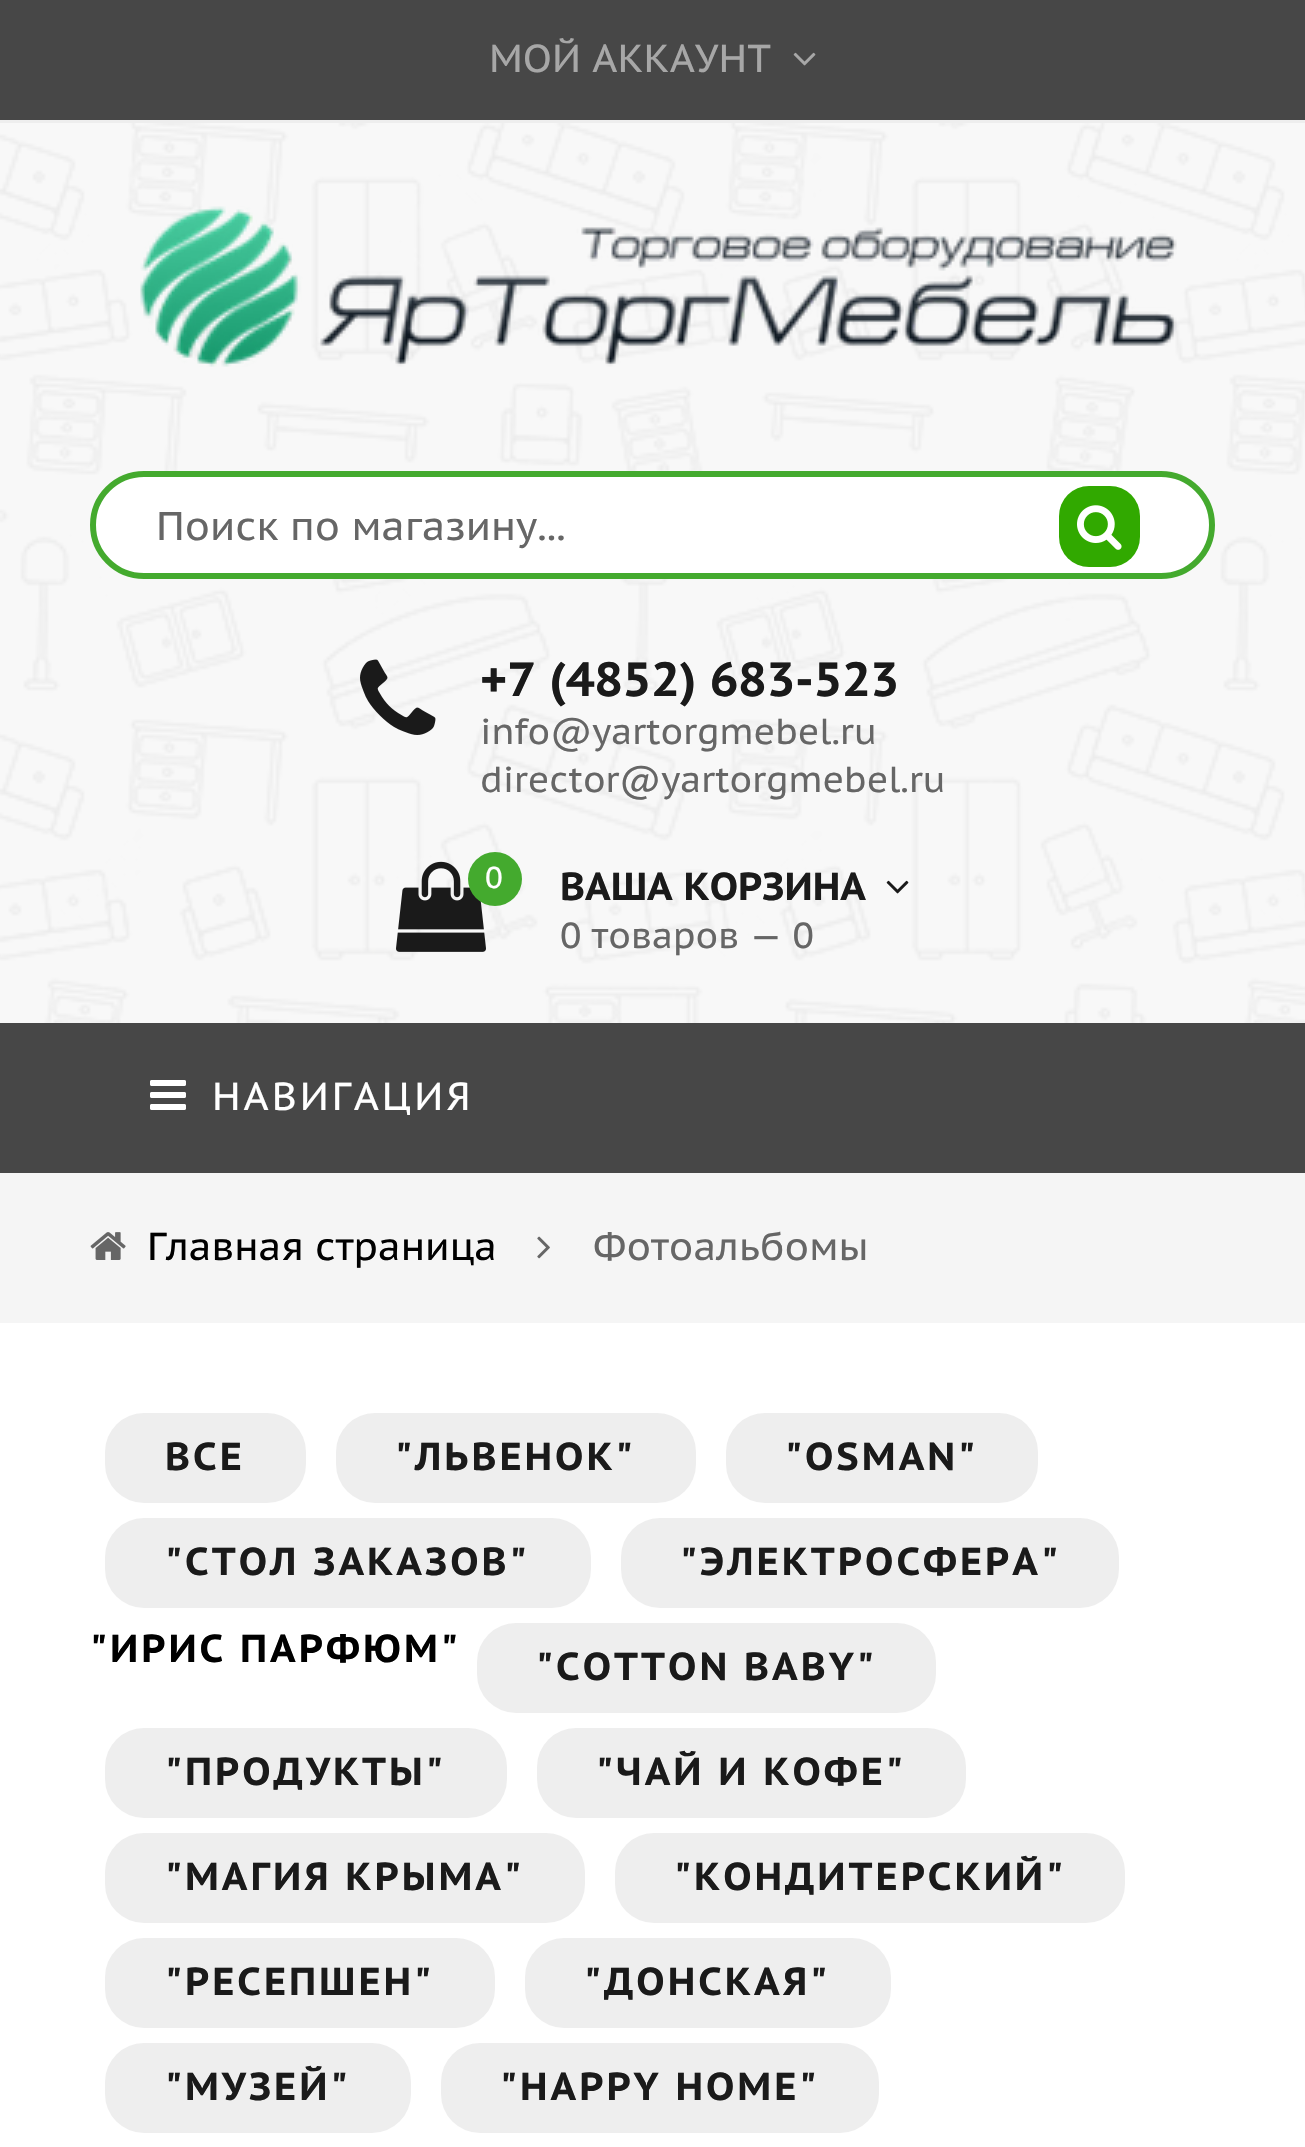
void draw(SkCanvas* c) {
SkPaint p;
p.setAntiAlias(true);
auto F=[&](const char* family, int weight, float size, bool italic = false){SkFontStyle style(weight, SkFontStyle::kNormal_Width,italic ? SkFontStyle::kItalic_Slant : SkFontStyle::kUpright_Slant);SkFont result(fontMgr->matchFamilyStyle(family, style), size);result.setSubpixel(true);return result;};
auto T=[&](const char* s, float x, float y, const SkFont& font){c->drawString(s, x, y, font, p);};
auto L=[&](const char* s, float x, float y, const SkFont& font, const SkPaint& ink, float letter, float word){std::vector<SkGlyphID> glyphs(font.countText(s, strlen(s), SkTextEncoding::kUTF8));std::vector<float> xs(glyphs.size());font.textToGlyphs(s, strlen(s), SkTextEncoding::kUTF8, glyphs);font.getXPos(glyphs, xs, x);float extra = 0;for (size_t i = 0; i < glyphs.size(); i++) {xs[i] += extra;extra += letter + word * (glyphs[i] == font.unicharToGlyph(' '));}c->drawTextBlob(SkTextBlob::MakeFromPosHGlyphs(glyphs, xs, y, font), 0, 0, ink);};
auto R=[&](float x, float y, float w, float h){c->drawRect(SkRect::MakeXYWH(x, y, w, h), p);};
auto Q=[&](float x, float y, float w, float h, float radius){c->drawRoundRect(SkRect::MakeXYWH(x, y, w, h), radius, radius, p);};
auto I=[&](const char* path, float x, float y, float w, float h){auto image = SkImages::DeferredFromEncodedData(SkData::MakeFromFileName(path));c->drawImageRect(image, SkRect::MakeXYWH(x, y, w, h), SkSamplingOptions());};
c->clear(0xffffffff);
p.setColor(0xff474747);
R(0,0,1305,120);
p.setColor(0xffeeeeee);
R(0,120,1305,3);
auto f1 = F("PT Sans Caption",400,39);
p.setColor(0xffa7a7a7);
T("МОЙ АККАУНТ",489,72,f1);
I("1.png",793,52,23,14);
I("2.png",0,123,1305,900);
I("3.png",140,206,1037,161);
p.setColor(0xffffffff);
c->drawRoundRect(SkRect::MakeXYWH(93,474,1119,102),51,51,p);
p.setStroke(true);
p.setStrokeWidth(6);
p.setColor(0xff44aa2e);
c->drawRoundRect(SkRect::MakeXYWH(93,474,1119,102),51,51,p);
auto f2 = F("PT Sans Caption",400,40);
p.setStroke(false);
p.setColor(0xff666666);
T("Поиск по магазину...",156,540,f2);
p.setColor(0xff31a900);
Q(1059,486,81,81,30);
I("4.png",1077,505,45,45);
I("5.png",360,659,76,76);
auto f3 = F("PT Sans Caption",700,48);
p.setColor(0xff1a1a1a);
T("+7 (4852) 683-523",480,696,f3);
auto f4 = F("PT Sans Caption",400,36);
p.setColor(0xff666666);
T("info@yartorgmebel.ru",480,744,f4);
T("director@yartorgmebel.ru",480,792,f4);
I("6.png",396,861,90,91);
p.setColor(0xff44aa2e);
c->drawCircle(495,879,27,p);
auto f5 = F("PT Sans Caption",400,30);
p.setColor(0xffffffff);
T("0",485,888,f5);
auto f6 = F("PT Sans Caption",700,39);
p.setColor(0xff1a1a1a);
T("ВАША КОРЗИНА",560,900,f6);
I("7.png",886,880,23,14);
p.setColor(0xff666666);
T("0 товаров — 0",560,948,f4);
p.setColor(0xff474747);
R(0,1023,1305,150);
I("8.png",150,1080,36,30);
p.setColor(0xffffffff);
L("НАВИГАЦИЯ",212,1110,f1,p,3,0);
p.setColor(0xfff5f5f5);
R(0,1173,1305,150);
I("9.png",90,1232,36,28);
p.setColor(0xff000000);
T("Главная страница",147,1260,f1);
I("10.png",537,1236,13,23);
p.setColor(0xff666666);
T("Фотоальбомы",593,1260,f1);
p.setColor(0xffeeeeee);
Q(105,1413,201,90,39);
p.setColor(0xff1a1a1a);
L("ВСЕ",165,1470,f6,p,3,0);
p.setColor(0xffeeeeee);
Q(336,1413,360,90,39);
p.setColor(0xff1a1a1a);
L("\"ЛЬВЕНОК\"",395,1470,f6,p,3,0);
p.setColor(0xffeeeeee);
Q(726,1413,312,90,39);
p.setColor(0xff1a1a1a);
L("\"OSMAN\"",785,1470,f6,p,3,0);
p.setColor(0xffeeeeee);
Q(105,1518,486,90,39);
p.setColor(0xff1a1a1a);
L("\"СТОЛ ЗАКАЗОВ\"",165,1575,f6,p,3,0);
p.setColor(0xffeeeeee);
Q(621,1518,498,90,39);
p.setColor(0xff1a1a1a);
L("\"ЭЛЕКТРОСФЕРА\"",680,1575,f6,p,3,0);
p.setColor(0xff000000);
L("\"ИРИС ПАРФЮМ\"",90,1662,f6,p,3,0);
p.setColor(0xffeeeeee);
Q(477,1623,459,90,39);
p.setColor(0xff1a1a1a);
L("\"COTTON BABY\"",536,1680,f6,p,3,0);
p.setColor(0xffeeeeee);
Q(105,1728,402,90,39);
p.setColor(0xff1a1a1a);
L("\"ПРОДУКТЫ\"",165,1785,f6,p,3,0);
p.setColor(0xffeeeeee);
Q(537,1728,429,90,39);
p.setColor(0xff1a1a1a);
L("\"ЧАЙ И КОФЕ\"",596,1785,f6,p,3,0);
p.setColor(0xffeeeeee);
Q(105,1833,480,90,39);
p.setColor(0xff1a1a1a);
L("\"МАГИЯ КРЫМА\"",165,1890,f6,p,3,0);
p.setColor(0xffeeeeee);
Q(615,1833,510,90,39);
p.setColor(0xff1a1a1a);
L("\"КОНДИТЕРСКИЙ\"",674,1890,f6,p,3,0);
p.setColor(0xffeeeeee);
Q(105,1938,390,90,39);
p.setColor(0xff1a1a1a);
L("\"РЕСЕПШЕН\"",165,1995,f6,p,3,0);
p.setColor(0xffeeeeee);
Q(525,1938,366,90,39);
p.setColor(0xff1a1a1a);
L("\"ДОНСКАЯ\"",584,1995,f6,p,3,0);
p.setColor(0xffeeeeee);
Q(105,2043,306,90,39);
p.setColor(0xff1a1a1a);
L("\"МУЗЕЙ\"",165,2100,f6,p,3,0);
p.setColor(0xffeeeeee);
Q(441,2043,438,90,39);
p.setColor(0xff1a1a1a);
L("\"HAPPY HOME\"",500,2100,f6,p,3,0);
}
